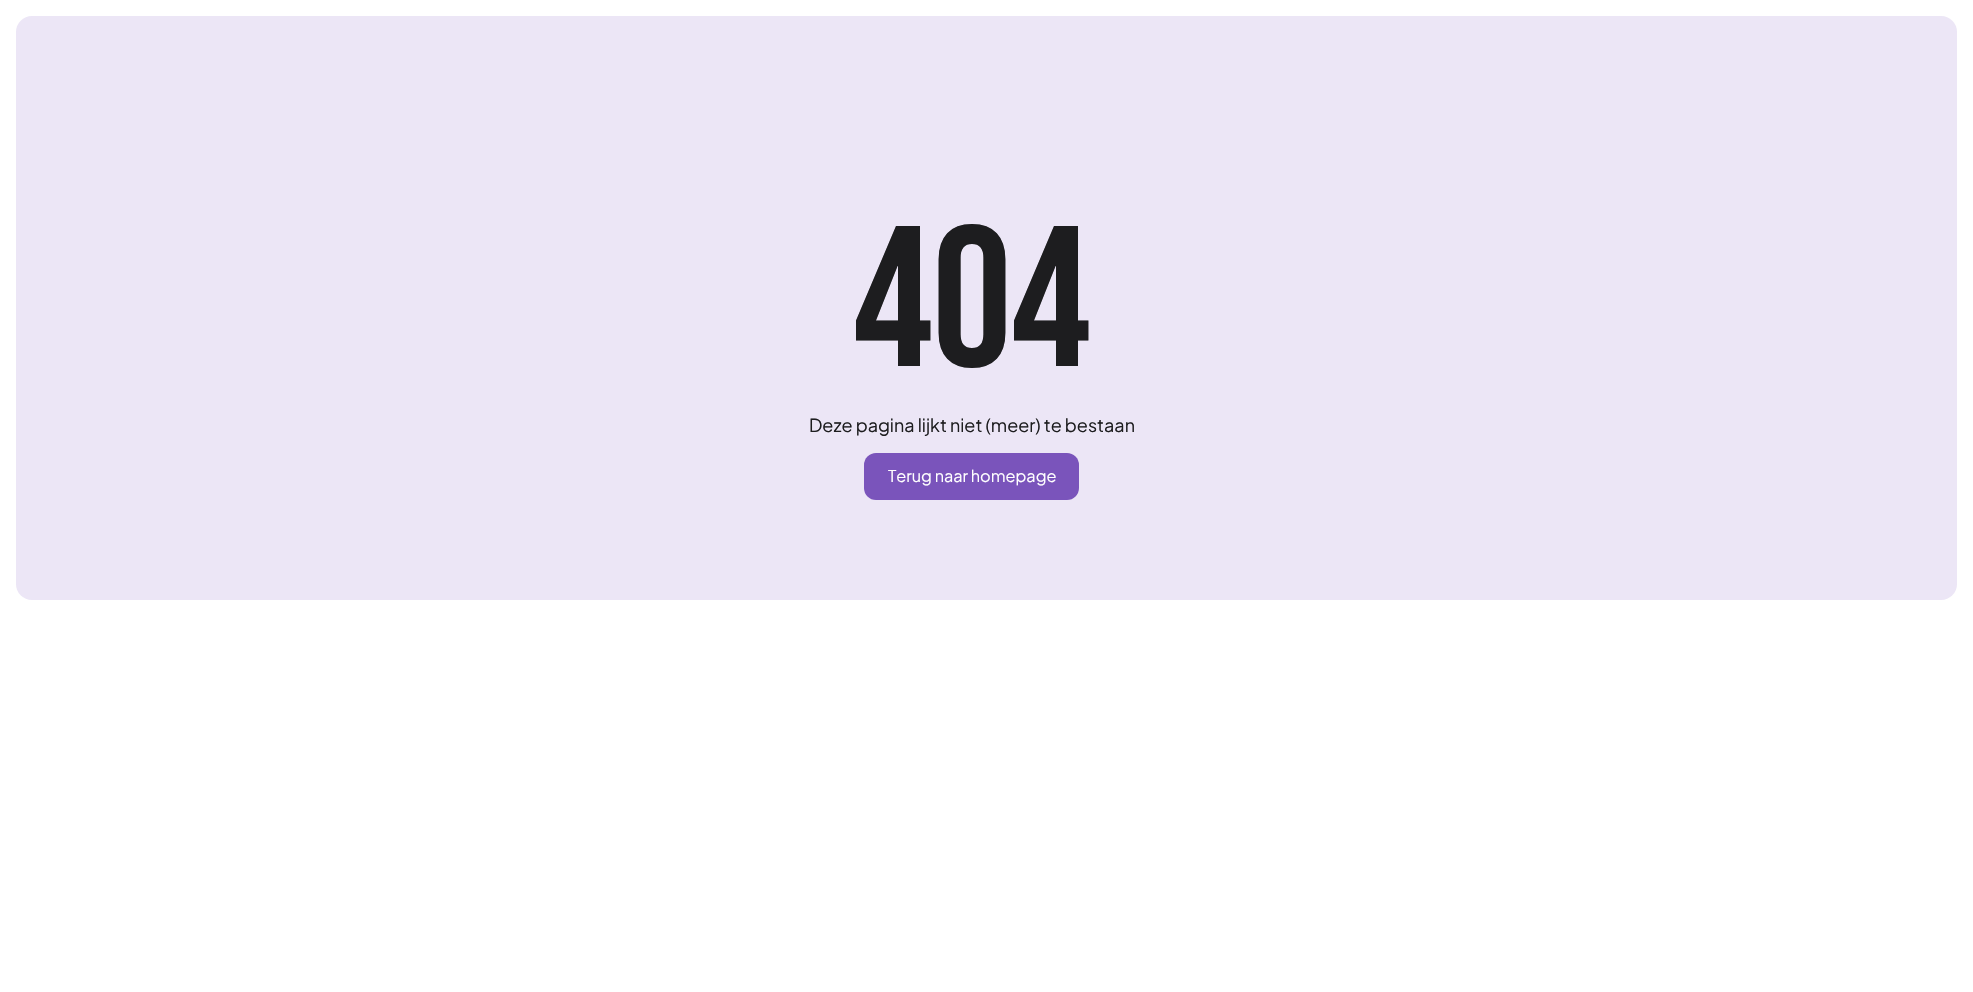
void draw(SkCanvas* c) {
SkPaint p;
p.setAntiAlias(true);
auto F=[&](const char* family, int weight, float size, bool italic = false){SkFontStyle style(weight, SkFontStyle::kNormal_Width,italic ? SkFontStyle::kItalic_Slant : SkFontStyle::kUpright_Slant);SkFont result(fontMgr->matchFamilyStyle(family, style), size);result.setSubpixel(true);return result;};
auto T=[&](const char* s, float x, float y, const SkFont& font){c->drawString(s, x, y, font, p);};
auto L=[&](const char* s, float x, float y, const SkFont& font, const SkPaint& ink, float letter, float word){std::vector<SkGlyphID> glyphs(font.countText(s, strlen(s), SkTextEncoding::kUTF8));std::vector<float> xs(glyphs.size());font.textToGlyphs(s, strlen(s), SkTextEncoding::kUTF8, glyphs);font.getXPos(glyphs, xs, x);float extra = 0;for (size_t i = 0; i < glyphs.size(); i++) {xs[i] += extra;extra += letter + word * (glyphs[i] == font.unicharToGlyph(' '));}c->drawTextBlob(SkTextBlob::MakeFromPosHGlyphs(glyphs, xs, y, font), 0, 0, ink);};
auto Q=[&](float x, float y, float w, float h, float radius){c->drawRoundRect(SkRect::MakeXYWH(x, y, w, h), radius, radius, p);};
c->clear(0xffffffff);
p.setColor(0xffece6f6);
Q(16,16,1941,584,16);
auto f1 = F("Bebas Neue",400,200);
p.setColor(0xff1d1d1f);
L("404",853,366,f1,p,-1,0);
auto f2 = F("Plus Jakarta Sans",400,18);
T("Deze pagina lijkt niet (meer) te bestaan",809,432,f2);
p.setColor(0xff7a54bb);
Q(864,453,215,47,12);
auto f3 = F("Plus Jakarta Sans",400,16.25);
p.setColor(0xffffffff);
T("Terug naar homepage",888,482,f3);
}
